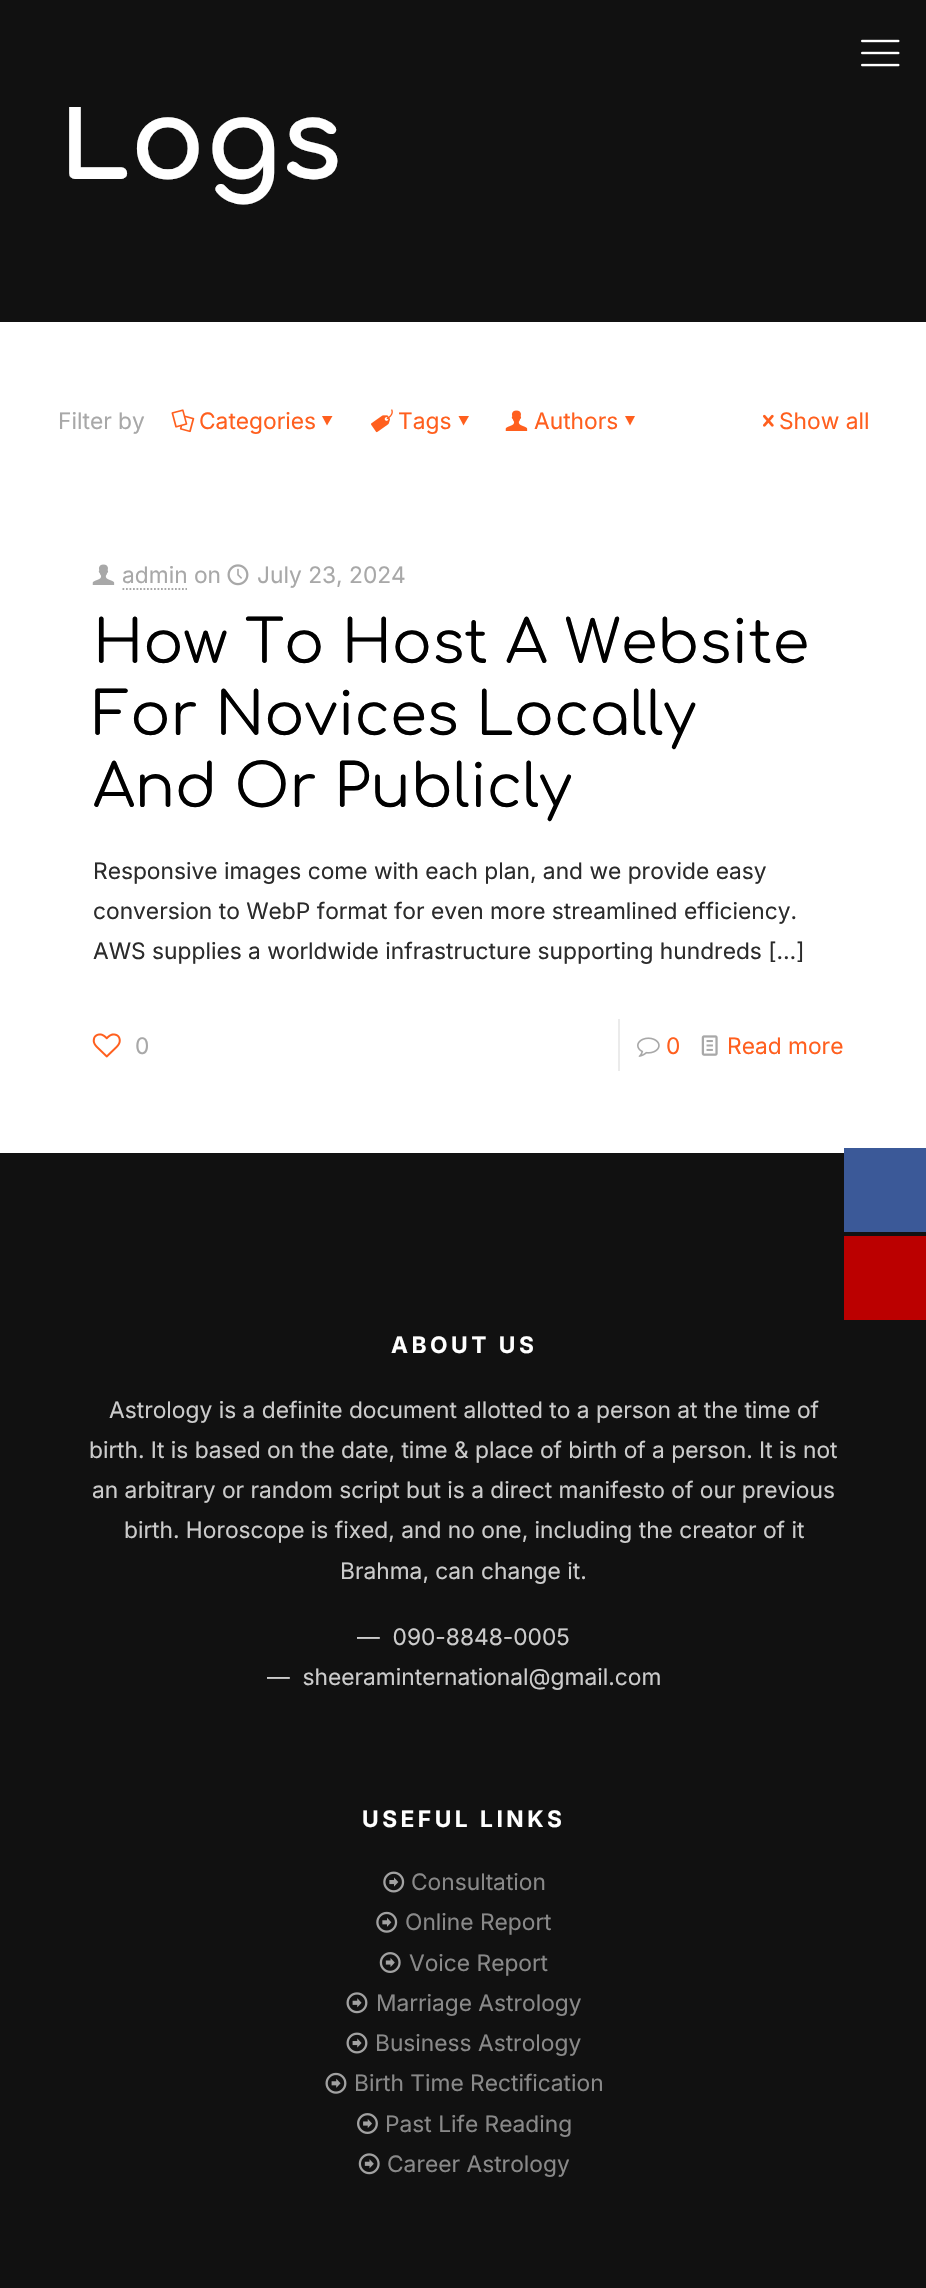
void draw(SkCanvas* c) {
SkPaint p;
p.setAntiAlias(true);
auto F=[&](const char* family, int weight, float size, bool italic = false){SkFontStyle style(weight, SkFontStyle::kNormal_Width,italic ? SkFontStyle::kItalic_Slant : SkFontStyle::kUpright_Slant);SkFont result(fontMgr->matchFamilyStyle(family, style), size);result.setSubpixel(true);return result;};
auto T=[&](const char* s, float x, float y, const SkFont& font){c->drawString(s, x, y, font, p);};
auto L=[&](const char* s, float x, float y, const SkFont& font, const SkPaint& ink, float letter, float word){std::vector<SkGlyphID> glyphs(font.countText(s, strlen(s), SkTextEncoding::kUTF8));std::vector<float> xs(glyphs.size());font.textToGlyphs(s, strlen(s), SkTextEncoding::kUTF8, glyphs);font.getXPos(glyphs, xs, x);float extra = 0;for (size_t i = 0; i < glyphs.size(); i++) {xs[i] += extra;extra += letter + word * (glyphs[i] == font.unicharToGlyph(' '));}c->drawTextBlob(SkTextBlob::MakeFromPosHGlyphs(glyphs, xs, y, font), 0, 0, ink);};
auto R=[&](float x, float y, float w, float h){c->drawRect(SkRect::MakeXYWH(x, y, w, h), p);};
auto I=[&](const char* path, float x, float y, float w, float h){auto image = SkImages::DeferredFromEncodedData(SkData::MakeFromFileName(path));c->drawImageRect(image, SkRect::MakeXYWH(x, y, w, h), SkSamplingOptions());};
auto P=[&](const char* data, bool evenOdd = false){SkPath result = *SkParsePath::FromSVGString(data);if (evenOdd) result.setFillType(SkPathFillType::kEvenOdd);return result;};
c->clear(0xffffffff);
p.setColor(0xff111111);
R(0,107,926,215);
auto f1 = F("Comfortaa",700,112);
p.setColor(0xffffffff);
T("Logs",58,179,f1);
p.setColor(0xff111111);
R(0,0,926,107);
I("1.png",861,39,39,28);
auto f2 = F("Inter",400,22.75);
p.setColor(0xffa8a8a8);
T("Filter by",58,429,f2);
I("2.png",171,409,24,24);
p.setColor(0xffff5f1e);
T("Categories",199,429,f2);
c->drawPath(P("M332.5 416l-5.5 9.5l-5-9.5z"),p);
I("3.png",371,409,22,24);
T("Tags",398,429,f2);
c->drawPath(P("M469 416l-5.5 9.5l-5-9.5z"),p);
I("4.png",505,410,23,21);
T("Authors",534,429,f2);
c->drawPath(P("M635 416l-5 9.5l-5-9.5z"),p);
I("5.png",763,414,11,13);
T("Show all",779,429,f2);
I("6.png",92,564,23,21);
p.setColor(0xffa8a8a8);
T("admin on",122,583,f2);
p.setStroke(true);
p.setStrokeWidth(1.8);
p.setPathEffect(SkDashPathEffect::Make({{1.75f,1.75f}}, 0));
c->drawPath(P("M122.5 589h64.5"),p);
p.setPathEffect(nullptr);
I("7.png",227,564,22,22);
p.setStroke(false);
T("July 23, 2024",257,583,f2);
auto f3 = F("Comfortaa",400,59.5);
p.setColor(0xff000000);
T("How To Host A Website",93,663,f3);
T("For Novices Locally",93,735,f3);
T("And Or Publicly",93,807,f3);
p.setColor(0xff2b2b2b);
T("Responsive images come with each plan, and we provide easy",93,879,f2);
T("conversion to WebP format for even more streamlined efficiency.",93,919,f2);
T("AWS supplies a worldwide infrastructure supporting hundreds […]",93,959,f2);
I("8.png",92,1033,29,25);
p.setColor(0xffa8a8a8);
T("0",135,1054,f2);
p.setColor(0xffebebeb);
R(618,1019,2,52);
I("9.png",637,1037,23,20);
p.setColor(0xffff5f1e);
T("0",666,1054,f2);
I("10.png",701,1035,17,21);
T("Read more",727,1054,f2);
p.setColor(0xff111111);
R(0,1153,926,1135);
auto f4 = F("Inter",700,22.75);
p.setColor(0xffffffff);
L("ABOUT US",391,1353,f4,p,3.5,0);
p.setColor(0xffcccccc);
T("Astrology is a definite document allotted to a person at the time of",109,1418,f2);
T("birth. It is based on the date, time & place of birth of a person. It is not",89,1458,f2);
T("an arbitrary or random script but is a direct manifesto of our previous",92,1498,f2);
T("birth. Horoscope is fixed, and no one, including the creator of it",124,1538,f2);
T("Brahma, can change it.",340,1579,f2);
T("—  090-8848-0005",357,1645,f2);
T("—  sheeraminternational@gmail.com",267,1685,f2);
p.setColor(0xffffffff);
L("USEFUL LINKS",362,1827,f4,p,3.5,0);
I("11.png",383,1871,22,22);
p.setColor(0xff898989);
T("Consultation",411,1890,f2);
I("12.png",376,1911,22,22);
T("Online Report",405,1930,f2);
I("13.png",379,1952,22,21);
T("Voice Report",409,1971,f2);
I("14.png",346,1992,22,22);
T("Marriage Astrology",376,2011,f2);
I("15.png",346,2032,22,22);
T("Business Astrology",375,2051,f2);
I("16.png",325,2072,22,22);
T("Birth Time Rectification",354,2091,f2);
I("17.png",357,2113,21,21);
T("Past Life Reading",385,2132,f2);
I("18.png",358,2153,22,22);
T("Career Astrology",387,2172,f2);
p.setColor(0xff3b5998);
R(844,1148,82,84);
p.setColor(0xffbb0000);
R(844,1236,82,84);
}
